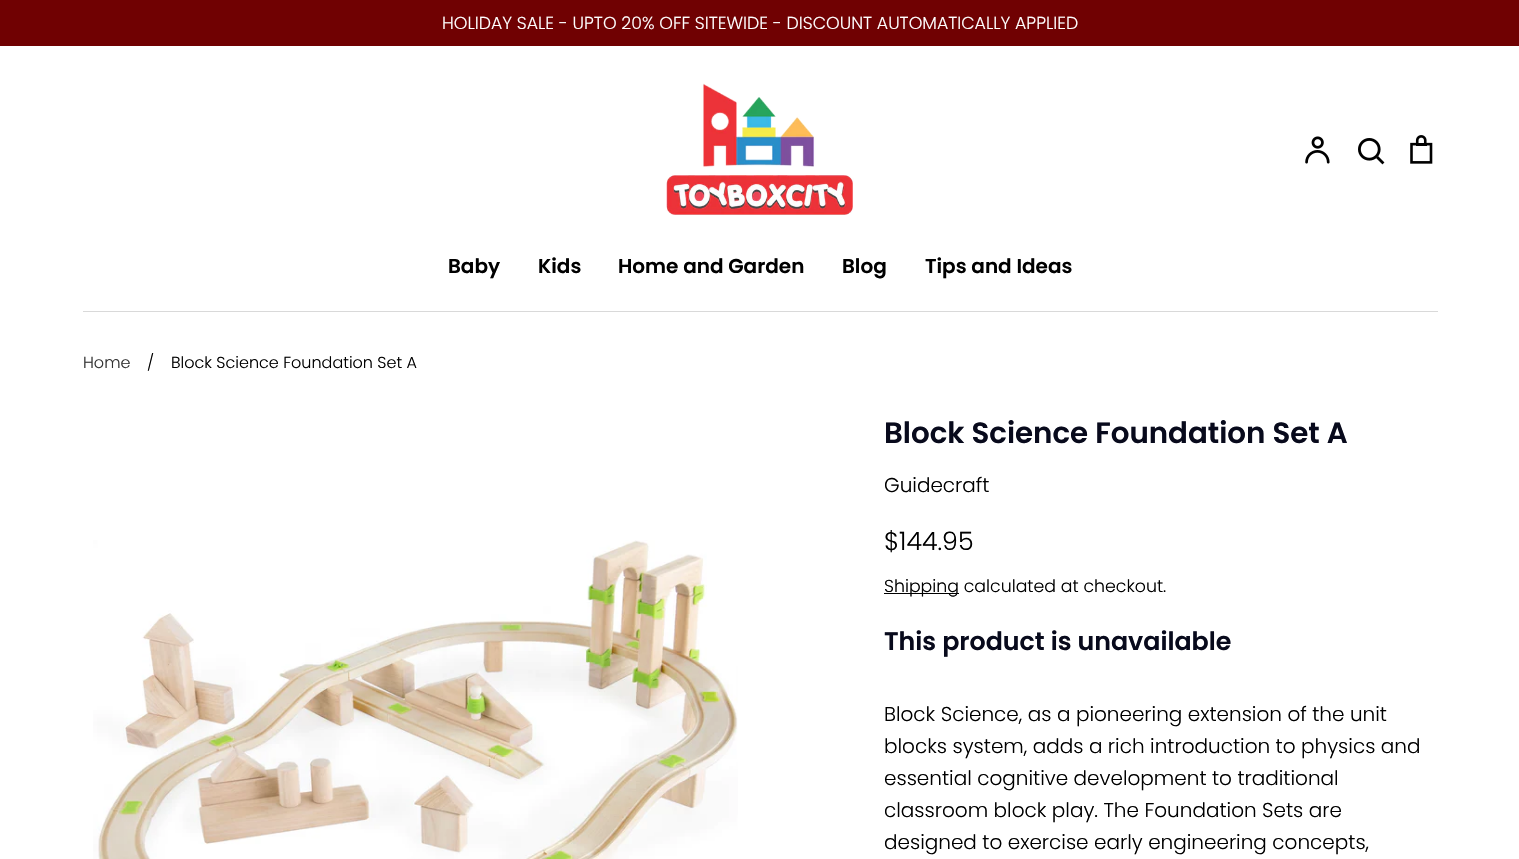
void draw(SkCanvas* c) {
SkPaint p;
p.setAntiAlias(true);
auto F=[&](const char* family, int weight, float size, bool italic = false){SkFontStyle style(weight, SkFontStyle::kNormal_Width,italic ? SkFontStyle::kItalic_Slant : SkFontStyle::kUpright_Slant);SkFont result(fontMgr->matchFamilyStyle(family, style), size);result.setSubpixel(true);return result;};
auto T=[&](const char* s, float x, float y, const SkFont& font){c->drawString(s, x, y, font, p);};
auto R=[&](float x, float y, float w, float h){c->drawRect(SkRect::MakeXYWH(x, y, w, h), p);};
auto I=[&](const char* path, float x, float y, float w, float h){auto image = SkImages::DeferredFromEncodedData(SkData::MakeFromFileName(path));c->drawImageRect(image, SkRect::MakeXYWH(x, y, w, h), SkSamplingOptions());};
c->clear(0xffffffff);
p.setColor(0xff700102);
R(0,0,1519,46);
auto f1 = F("Poppins",300,17.35);
p.setColor(0xffffffff);
T("HOLIDAY SALE - UPTO 20% OFF SITEWIDE - DISCOUNT AUTOMATICALLY APPLIED",442,29,f1);
I("1.png",666,83,188,132);
I("2.png",1305,136,25,28);
I("3.png",1358,138,27,27);
I("4.png",1410,135,23,29);
p.setColor(0xffd9d9d9);
R(83,311,1355,1);
auto f2 = F("Poppins",600,20);
p.setColor(0xff000000);
T("Baby",448,273,f2);
T("Kids",538,273,f2);
T("Home and Garden",618,273,f2);
T("Blog",842,273,f2);
T("Tips and Ideas",925,273,f2);
auto f3 = F("Poppins",300,16);
p.setColor(0xff333333);
T("Home",83,368,f3);
p.setColor(0xff000000);
T("/",147,368,f3);
T("Block Science Foundation Set A",171,368,f3);
I("5.png",93,540,645,319);
auto f4 = F("Poppins",600,29.3);
p.setColor(0xff080a1c);
T("Block Science Foundation Set A",884,443,f4);
auto f5 = F("Poppins",300,20);
p.setColor(0xff000000);
T("Guidecraft",884,492,f5);
auto f6 = F("Poppins",300,25.3);
T("$144.95",884,550,f6);
R(884,593,75,1);
T("Shipping calculated at checkout.",884,592,f1);
auto f7 = F("Poppins",600,25.3);
p.setColor(0xff080a1c);
T("This product is unavailable",884,650,f7);
p.setColor(0xff000000);
T("Block Science, as a pioneering extension of the unit",884,721,f5);
T("blocks system, adds a rich introduction to physics and",884,753,f5);
T("essential cognitive development to traditional",884,785,f5);
T("classroom block play. The Foundation Sets are",884,817,f5);
T("designed to exercise early engineering concepts,",884,849,f5);
}
